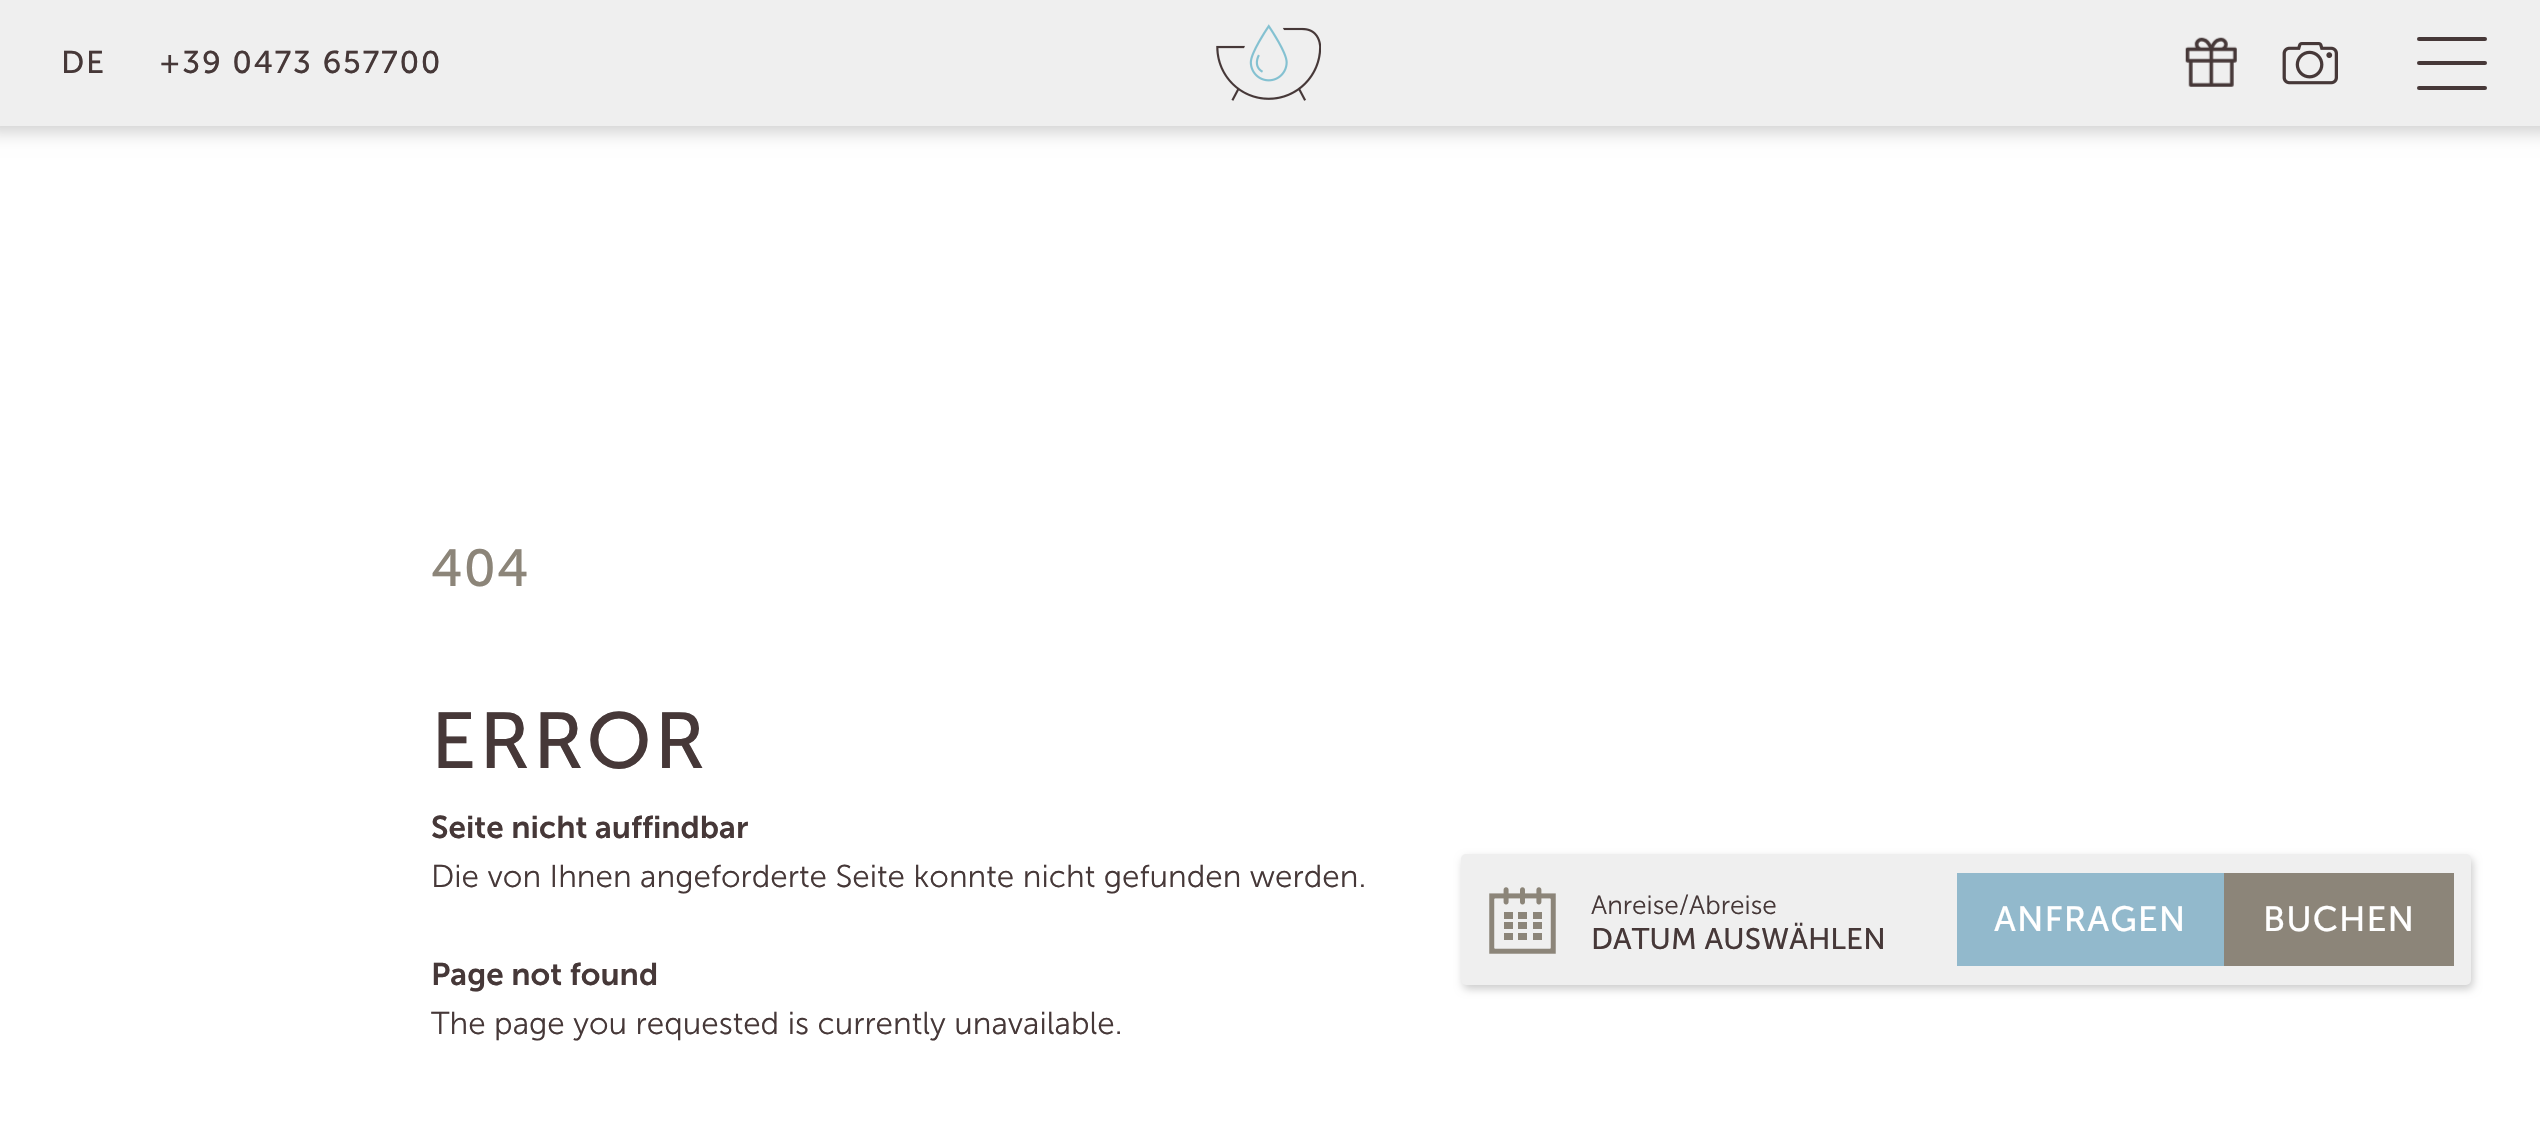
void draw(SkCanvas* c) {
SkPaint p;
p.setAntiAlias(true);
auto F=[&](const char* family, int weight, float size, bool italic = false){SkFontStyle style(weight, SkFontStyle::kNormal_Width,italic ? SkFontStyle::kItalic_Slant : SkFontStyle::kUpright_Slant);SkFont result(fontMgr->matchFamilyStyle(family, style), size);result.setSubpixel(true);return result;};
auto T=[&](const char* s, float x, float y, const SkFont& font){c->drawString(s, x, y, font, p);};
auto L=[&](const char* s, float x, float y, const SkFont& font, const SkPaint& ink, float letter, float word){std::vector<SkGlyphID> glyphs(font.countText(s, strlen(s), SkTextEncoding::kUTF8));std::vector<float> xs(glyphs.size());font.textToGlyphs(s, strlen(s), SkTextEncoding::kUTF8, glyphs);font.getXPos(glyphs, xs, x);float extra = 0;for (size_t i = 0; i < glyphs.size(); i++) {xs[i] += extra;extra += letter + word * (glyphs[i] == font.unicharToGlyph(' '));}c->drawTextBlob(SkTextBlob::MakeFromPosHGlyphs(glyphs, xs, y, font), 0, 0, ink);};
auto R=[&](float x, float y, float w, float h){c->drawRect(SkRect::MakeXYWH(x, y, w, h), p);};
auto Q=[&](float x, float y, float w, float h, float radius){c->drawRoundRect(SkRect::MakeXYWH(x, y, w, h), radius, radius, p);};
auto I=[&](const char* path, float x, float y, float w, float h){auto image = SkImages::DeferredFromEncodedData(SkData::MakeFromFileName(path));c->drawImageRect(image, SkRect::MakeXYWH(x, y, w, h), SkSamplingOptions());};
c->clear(0xffffffff);
p.setColor(0x33000000);
p.setMaskFilter(SkMaskFilter::MakeBlur(kNormal_SkBlurStyle, 9));
c->drawRect(SkRect::MakeXYWH(-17,-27,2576,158),p);
p.setMaskFilter(nullptr);
p.setColor(0xffefefef);
R(0,0,2540,126);
auto f1 = F("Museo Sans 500",400,31.5);
p.setColor(0xff463838);
L("DE",61,73,f1,p,1.75,0);
L("+39 0473 657700",159,73,f1,p,1.75,0);
I("1.png",1216,24,105,77);
I("2.png",2185,37,52,50);
I("3.png",2282,42,56,43);
Q(2417,37,70,4,2);
Q(2417,61,70,4,2);
Q(2417,86,70,4,2);
auto f2 = F("Museo Sans 500",400,52);
p.setColor(0xff8c8579);
L("404",431,586,f2,p,1,0);
auto f3 = F("Museo Sans 500",400,79);
p.setColor(0xff463838);
L("ERROR",431,768,f3,p,3,0);
auto f4 = F("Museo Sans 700",600,31.5);
T("Seite nicht auffindbar",431,838,f4);
auto f5 = F("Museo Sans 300",300,31.5);
T("Die von Ihnen angeforderte Seite konnte nicht gefunden werden.",431,887,f5);
T("Page not found",431,985,f4);
T("The page you requested is currently unavailable.",431,1034,f5);
p.setColor(0x33000000);
p.setMaskFilter(SkMaskFilter::MakeBlur(kNormal_SkBlurStyle, 4.5));
c->drawRoundRect(SkRect::MakeXYWH(1463,858,1010,131),5,5,p);
p.setMaskFilter(nullptr);
p.setColor(0xffefefef);
Q(1461,854,1010,131,5);
I("4.png",1489,887,67,67);
auto f6 = F("Museo Sans 300",300,26.25);
p.setColor(0xff463838);
T("Anreise/Abreise",1591,914,f6);
auto f7 = F("Museo Sans 500",400,29.75);
T("DATUM AUSWÄHLEN",1591,949,f7);
p.setColor(0xff92b9cc);
R(1957,873,267,93);
auto f8 = F("Museo Sans 500",400,35);
p.setColor(0xffffffff);
L("ANFRAGEN",1994,931,f8,p,1,0);
p.setColor(0xff8c8579);
R(2224,873,230,93);
p.setColor(0xffffffff);
L("BUCHEN",2263,931,f8,p,1,0);
}
